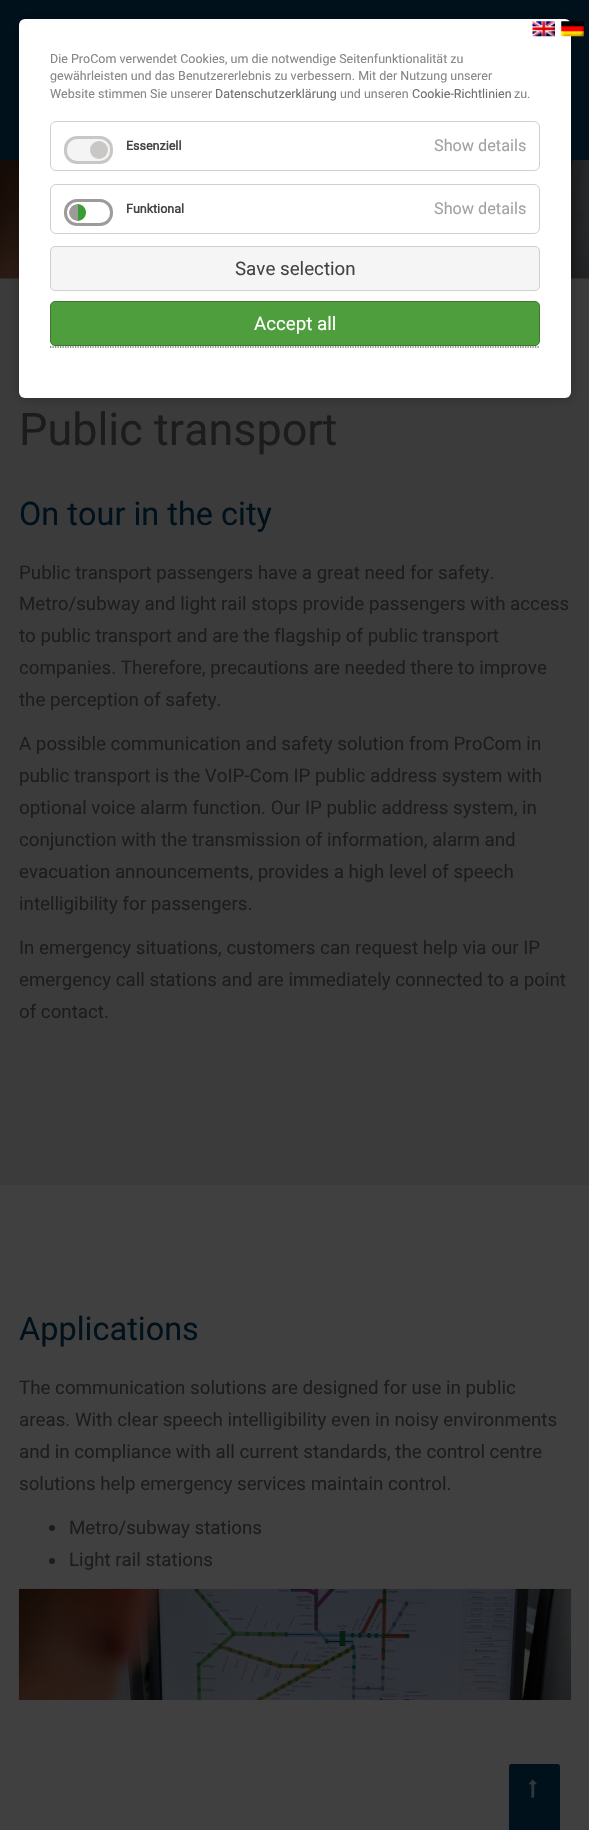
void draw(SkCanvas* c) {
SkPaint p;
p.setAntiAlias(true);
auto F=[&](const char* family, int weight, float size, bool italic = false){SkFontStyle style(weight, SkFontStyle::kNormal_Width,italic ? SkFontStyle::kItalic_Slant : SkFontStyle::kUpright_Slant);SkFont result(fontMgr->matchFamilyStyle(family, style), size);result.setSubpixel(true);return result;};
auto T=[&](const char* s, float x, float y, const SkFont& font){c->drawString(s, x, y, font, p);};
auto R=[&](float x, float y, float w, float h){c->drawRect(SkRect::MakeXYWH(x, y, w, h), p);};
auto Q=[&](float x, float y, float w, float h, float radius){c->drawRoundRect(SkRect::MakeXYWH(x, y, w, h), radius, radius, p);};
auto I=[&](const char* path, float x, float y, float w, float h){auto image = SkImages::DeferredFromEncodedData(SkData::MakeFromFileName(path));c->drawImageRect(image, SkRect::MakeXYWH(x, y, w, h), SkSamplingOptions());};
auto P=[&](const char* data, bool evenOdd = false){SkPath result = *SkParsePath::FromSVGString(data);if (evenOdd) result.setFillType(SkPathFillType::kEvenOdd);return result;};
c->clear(0xff404040);
p.setColor(0xff00111b);
R(0,0,589,160);
I("3.png",18,74,1,12);
I("5.png",0,160,589,119);
p.setColor(0xff3b3b3b);
R(0,279,589,906);
p.setColor(0x40000000);
p.setMaskFilter(SkMaskFilter::MakeBlur(kNormal_SkBlurStyle, 6));
c->drawRoundRect(SkRect::MakeXYWH(19,19,552,379),6,6,p);
p.setMaskFilter(nullptr);
p.setColor(0xffffffff);
Q(19,19,552,379,6);
auto f1 = F("Roboto",400,12.5);
p.setColor(0xff868686);
T("Die ProCom verwendet Cookies, um die notwendige Seitenfunktionalität zu",50,63,f1);
T("gewährleisten und das Benutzererlebnis zu verbessern. Mit der Nutzung unserer",50,80,f1);
T("Website stimmen Sie unserer",50,98,f1);
p.setColor(0xff6e6e6e);
T("Datenschutzerklärung",215,98,f1);
p.setColor(0xff868686);
T("und unseren",340,98,f1);
p.setColor(0xff6e6e6e);
T("Cookie-Richtlinien",412,98,f1);
p.setColor(0xff868686);
T("zu.",514,98,f1);
p.setStroke(true);
p.setStrokeWidth(1);
p.setColor(0xffd0d0d0);
c->drawRoundRect(SkRect::MakeXYWH(50.5,121.5,489,49),5.5,5.5,p);
p.setStroke(false);
p.setColor(0xfff4f4f4);
c->drawRoundRect(SkRect::MakeXYWH(65.5,137.5,46,25),11.5,11.5,p);
p.setStroke(true);
p.setStrokeWidth(3);
p.setColor(0xffc8c7c5);
c->drawRoundRect(SkRect::MakeXYWH(65.5,137.5,46,25),11.5,11.5,p);
auto f2 = F("Roboto",700,12.5);
p.setStroke(false);
p.setColor(0xff444444);
T("Essenziell",126,150,f2);
p.setColor(0xffc8c7c5);
c->drawCircle(99,150,9,p);
auto f3 = F("Roboto",400,16.25);
p.setColor(0xffa2a2a2);
T("Show details",434,151,f3);
p.setStroke(true);
p.setStrokeWidth(1);
p.setColor(0xffd0d0d0);
c->drawRoundRect(SkRect::MakeXYWH(50.5,184.5,489,49),5.5,5.5,p);
p.setStrokeWidth(3);
p.setColor(0xff9c9b99);
c->drawRoundRect(SkRect::MakeXYWH(65.5,200.5,46,24),11.5,11.5,p);
p.setStroke(false);
p.setColor(0xff444444);
T("Funktional",126,213,f2);
c->save();
c->clipPath(P("M77.5 204c4.5 0 8.5 4 8.5 8.5c0 4.5-4 8.5-8.5 8.5c-4.5 0-8.5-4-8.5-8.5c0-4.5 4-8.5 8.5-8.5z"),true);
p.setColor(0xff9c9b99);
c->drawPath(P("M77.5 204h.5v17h-.5c-4.5 0-8.5-4-8.5-8.5c0-4.5 4-8.5 8.5-8.5z"),p);
p.setColor(0xff399d32);
R(78,204,8,17);
c->restore();
p.setColor(0xffa2a2a2);
T("Show details",434,214,f3);
p.setStroke(true);
p.setStrokeWidth(1.2);
p.setColor(0xff222222);
p.setPathEffect(SkDashPathEffect::Make({{1.25f,1.25f}}, 0));
c->drawPath(P("M50 347h490"),p);
p.setPathEffect(nullptr);
p.setStroke(false);
p.setColor(0xfff5f5f5);
c->drawRoundRect(SkRect::MakeXYWH(50.5,246.5,489,44),4.5,4.5,p);
p.setStroke(true);
p.setStrokeWidth(1);
p.setColor(0xffcfcfcf);
c->drawRoundRect(SkRect::MakeXYWH(50.5,246.5,489,44),4.5,4.5,p);
auto f4 = F("Roboto",400,18.75);
p.setStroke(false);
p.setColor(0xff444444);
T("Save selection",235,275,f4);
p.setColor(0xff4e9e3e);
c->drawRoundRect(SkRect::MakeXYWH(50.5,301.5,489,44),4.5,4.5,p);
p.setStroke(true);
p.setColor(0xff3e7830);
c->drawRoundRect(SkRect::MakeXYWH(50.5,301.5,489,44),4.5,4.5,p);
p.setStroke(false);
p.setColor(0xffffffff);
T("Accept all",254,330,f4);
I("1.png",532,21,23,16);
I("2.png",561,21,23,16);
p.setColor(0xff00111b);
Q(509,1764,51,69,2.5);
I("4.png",528,1779,9,19);
auto f5 = F("Roboto",400,45);
p.setColor(0xff1c1c1c);
T("Public transport",19,445,f5);
auto f6 = F("Roboto",400,32.5);
p.setColor(0xff00111b);
T("On tour in the city",19,525,f6);
p.setColor(0xff1c1c1c);
T("Public transport passengers have a great need for safety.",19,579,f4);
T("Metro/subway and light rail stops provide passengers with access",19,610,f4);
T("to public transport and are the flagship of public transport",19,642,f4);
T("companies. Therefore, precautions are needed there to improve",19,674,f4);
T("the perception of safety.",19,706,f4);
T("A possible communication and safety solution from ProCom in",19,750,f4);
T("public transport is the VoIP-Com IP public address system with",19,782,f4);
T("optional voice alarm function. Our IP public address system, in",19,814,f4);
T("conjunction with the transmission of information, alarm and",19,846,f4);
T("evacuation announcements, provides a high level of speech",19,878,f4);
T("intelligibility for passengers.",19,910,f4);
T("In emergency situations, customers can request help via our IP",19,954,f4);
T("emergency call stations and are immediately connected to a point",19,986,f4);
T("of contact.",19,1018,f4);
p.setColor(0xff00111b);
T("Applications",19,1340,f6);
p.setColor(0xff1c1c1c);
T("The communication solutions are designed for use in public",19,1394,f4);
T("areas. With clear speech intelligibility even in noisy environments",19,1426,f4);
T("and in compliance with all current standards, the control centre",19,1458,f4);
T("solutions help emergency services maintain control.",19,1490,f4);
c->drawCircle(52,1528,3,p);
T("Metro/subway stations",69,1534,f4);
c->drawCircle(52,1561,3,p);
T("Light rail stations",69,1566,f4);
I("6.png",18,1588,554,112);
}
